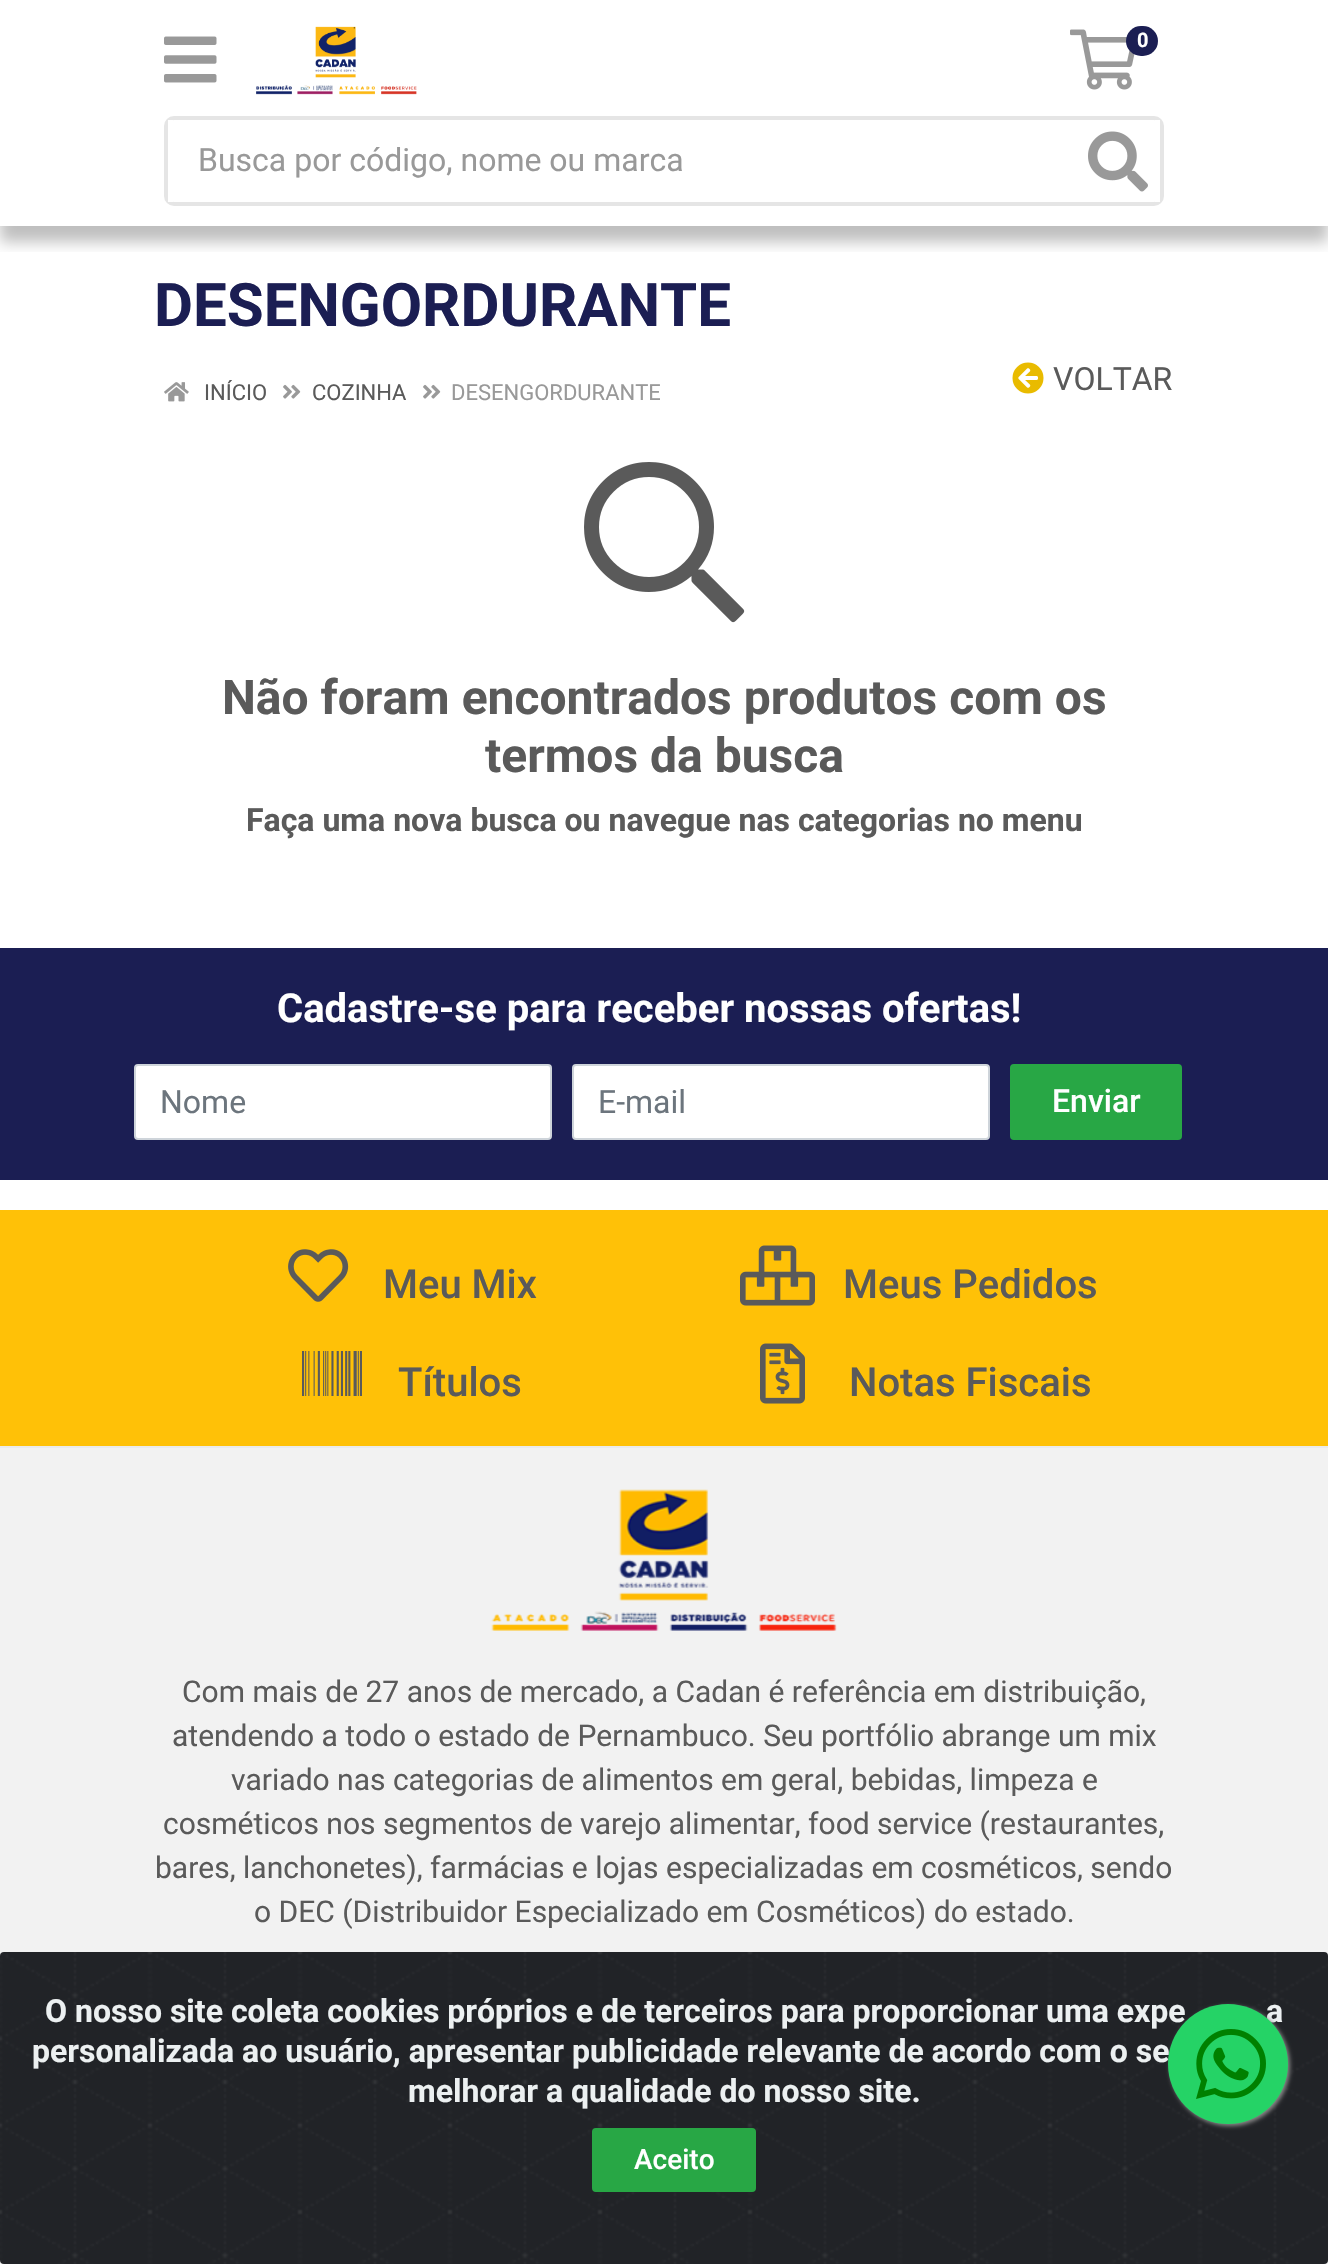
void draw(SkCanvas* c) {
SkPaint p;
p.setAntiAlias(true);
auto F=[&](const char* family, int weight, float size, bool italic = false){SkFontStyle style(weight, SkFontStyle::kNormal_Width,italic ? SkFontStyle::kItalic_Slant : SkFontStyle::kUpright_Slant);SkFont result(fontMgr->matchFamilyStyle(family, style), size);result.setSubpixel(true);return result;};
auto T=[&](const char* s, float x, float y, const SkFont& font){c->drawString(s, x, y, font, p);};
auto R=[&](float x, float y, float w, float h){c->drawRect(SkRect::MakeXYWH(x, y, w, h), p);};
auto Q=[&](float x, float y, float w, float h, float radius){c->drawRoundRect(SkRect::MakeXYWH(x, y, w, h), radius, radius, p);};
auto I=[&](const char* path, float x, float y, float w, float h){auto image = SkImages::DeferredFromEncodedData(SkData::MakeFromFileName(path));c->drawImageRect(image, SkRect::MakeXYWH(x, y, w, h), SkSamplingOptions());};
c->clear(0xffffffff);
I("1.png",164,36,53,47);
I("2.png",256,26,161,69);
I("3.png",1070,29,65,61);
p.setColor(0xff1b1e53);
Q(1126,26,32,30,15);
auto f1 = F("Roboto",700,20);
p.setColor(0xffffffff);
T("0",1137,47,f1);
c->save();
c->clipRect(SkRect::MakeXYWH(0,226,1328,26));
p.setColor(0x40000000);
p.setMaskFilter(SkMaskFilter::MakeBlur(kNormal_SkBlurStyle, 7));
c->drawRect(SkRect::MakeXYWH(0,132,1328,110),p);
p.setMaskFilter(nullptr);
c->restore();
p.setStroke(true);
p.setStrokeWidth(4);
p.setColor(0xffe5e5e5);
c->drawRoundRect(SkRect::MakeXYWH(166,118,996,86),8,8,p);
p.setStroke(false);
p.setColor(0xffffffff);
R(168,120,5,82);
auto f2 = F("Roboto",400,32);
p.setColor(0xff999999);
T("Busca por código, nome ou marca",198,171,f2);
p.setColor(0xffffffff);
R(1155,120,5,82);
I("4.png",1088,131,60,61);
auto f3 = F("Roboto",700,60);
p.setColor(0xff1b1e53);
T("DESENGORDURANTE",154,326,f3);
I("5.png",164,382,25,20);
auto f4 = F("Roboto",400,22);
p.setColor(0xff5a5a5a);
T("INÍCIO",204,400,f4);
I("6.png",283,384,18,15);
T("COZINHA",312,400,f4);
I("6.png",423,384,18,15);
p.setColor(0xff999999);
T("DESENGORDURANTE",451,400,f4);
I("7.png",1012,362,32,32);
p.setColor(0xff5a5a5a);
T("VOLTAR",1053,390,f2);
I("8.png",584,462,161,161);
auto f5 = F("Roboto",700,48);
T("Não foram encontrados produtos com os",222,714,f5);
T("termos da busca",485,772,f5);
auto f6 = F("Roboto",700,32);
T("Faça uma nova busca ou navegue nas categorias no menu",246,831,f6);
p.setColor(0xff1b1e53);
R(0,948,1328,232);
auto f7 = F("Roboto",700,40);
p.setColor(0xffffffff);
T("Cadastre-se para receber nossas ofertas!",277,1022,f7);
c->drawRoundRect(SkRect::MakeXYWH(135,1065,416,74),3,3,p);
p.setStroke(true);
p.setStrokeWidth(2);
p.setColor(0xffced4da);
c->drawRoundRect(SkRect::MakeXYWH(135,1065,416,74),3,3,p);
p.setStroke(false);
p.setColor(0xff6c757d);
T("Nome",160,1113,f2);
p.setColor(0xffffffff);
c->drawRoundRect(SkRect::MakeXYWH(573,1065,416,74),3,3,p);
p.setStroke(true);
p.setColor(0xffced4da);
c->drawRoundRect(SkRect::MakeXYWH(573,1065,416,74),3,3,p);
p.setStroke(false);
p.setColor(0xff6c757d);
T("E-mail",598,1113,f2);
p.setColor(0xff28a745);
c->drawRoundRect(SkRect::MakeXYWH(1011,1065,170,74),3,3,p);
p.setStroke(true);
c->drawRoundRect(SkRect::MakeXYWH(1011,1065,170,74),3,3,p);
auto f8 = F("Roboto",500,32);
p.setStroke(false);
p.setColor(0xffffffff);
T("Enviar",1052,1112,f8);
p.setColor(0xffffc107);
R(0,1210,1328,236);
I("9.png",288,1249,61,53);
auto f9 = F("Roboto",500,40);
p.setColor(0xff5a5a5a);
T("Meu Mix",383,1298,f9);
I("10.png",740,1245,75,61);
T("Meus Pedidos",843,1298,f9);
I("11.png",302,1351,60,45);
T("Títulos",398,1396,f9);
I("12.png",760,1343,45,61);
T("Notas Fiscais",849,1396,f9);
p.setColor(0xfff2f2f2);
R(0,1448,1328,816);
p.setColor(0xffebebeb);
R(0,1446,1328,2);
I("13.png",491,1489,346,142);
auto f10 = F("Roboto",400,30);
p.setColor(0xff5a5a5a);
T("Com mais de 27 anos de mercado, a Cadan é referência em distribuição,",182,1702,f10);
T("atendendo a todo o estado de Pernambuco. Seu portfólio abrange um mix",172,1746,f10);
T("variado nas categorias de alimentos em geral, bebidas, limpeza e",231,1790,f10);
T("cosméticos nos segmentos de varejo alimentar, food service (restaurantes,",163,1834,f10);
T("bares, lanchonetes), farmácias e lojas especializadas em cosméticos, sendo",155,1878,f10);
T("o DEC (Distribuidor Especializado em Cosméticos) do estado.",254,1922,f10);
I("14.png",0,1952,1328,312);
p.setColor(0xffecf0f1);
T("O nosso site coleta cookies próprios e de terceiros para proporcionar uma expe",45,2022,f6);
T("a",1266,2022,f6);
T("personalizada ao usuário, apresentar publicidade relevante de acordo com o se",32,2062,f6);
T("melhorar a qualidade do nosso site.",408,2102,f6);
p.setColor(0xff28a745);
c->drawRoundRect(SkRect::MakeXYWH(593,2129,162,62),3,3,p);
p.setStroke(true);
c->drawRoundRect(SkRect::MakeXYWH(593,2129,162,62),3,3,p);
auto f11 = F("Roboto",500,28);
p.setStroke(false);
p.setColor(0xffffffff);
T("Aceito",634,2169,f11);
p.setColor(0xff888888);
p.setMaskFilter(SkMaskFilter::MakeBlur(kNormal_SkBlurStyle, 2));
c->drawRoundRect(SkRect::MakeXYWH(1170,2006,120,120),60,60,p);
p.setMaskFilter(nullptr);
p.setColor(0xff25d366);
c->drawCircle(1228,2064,60,p);
I("15.png",1196,2029,70,70);
}
